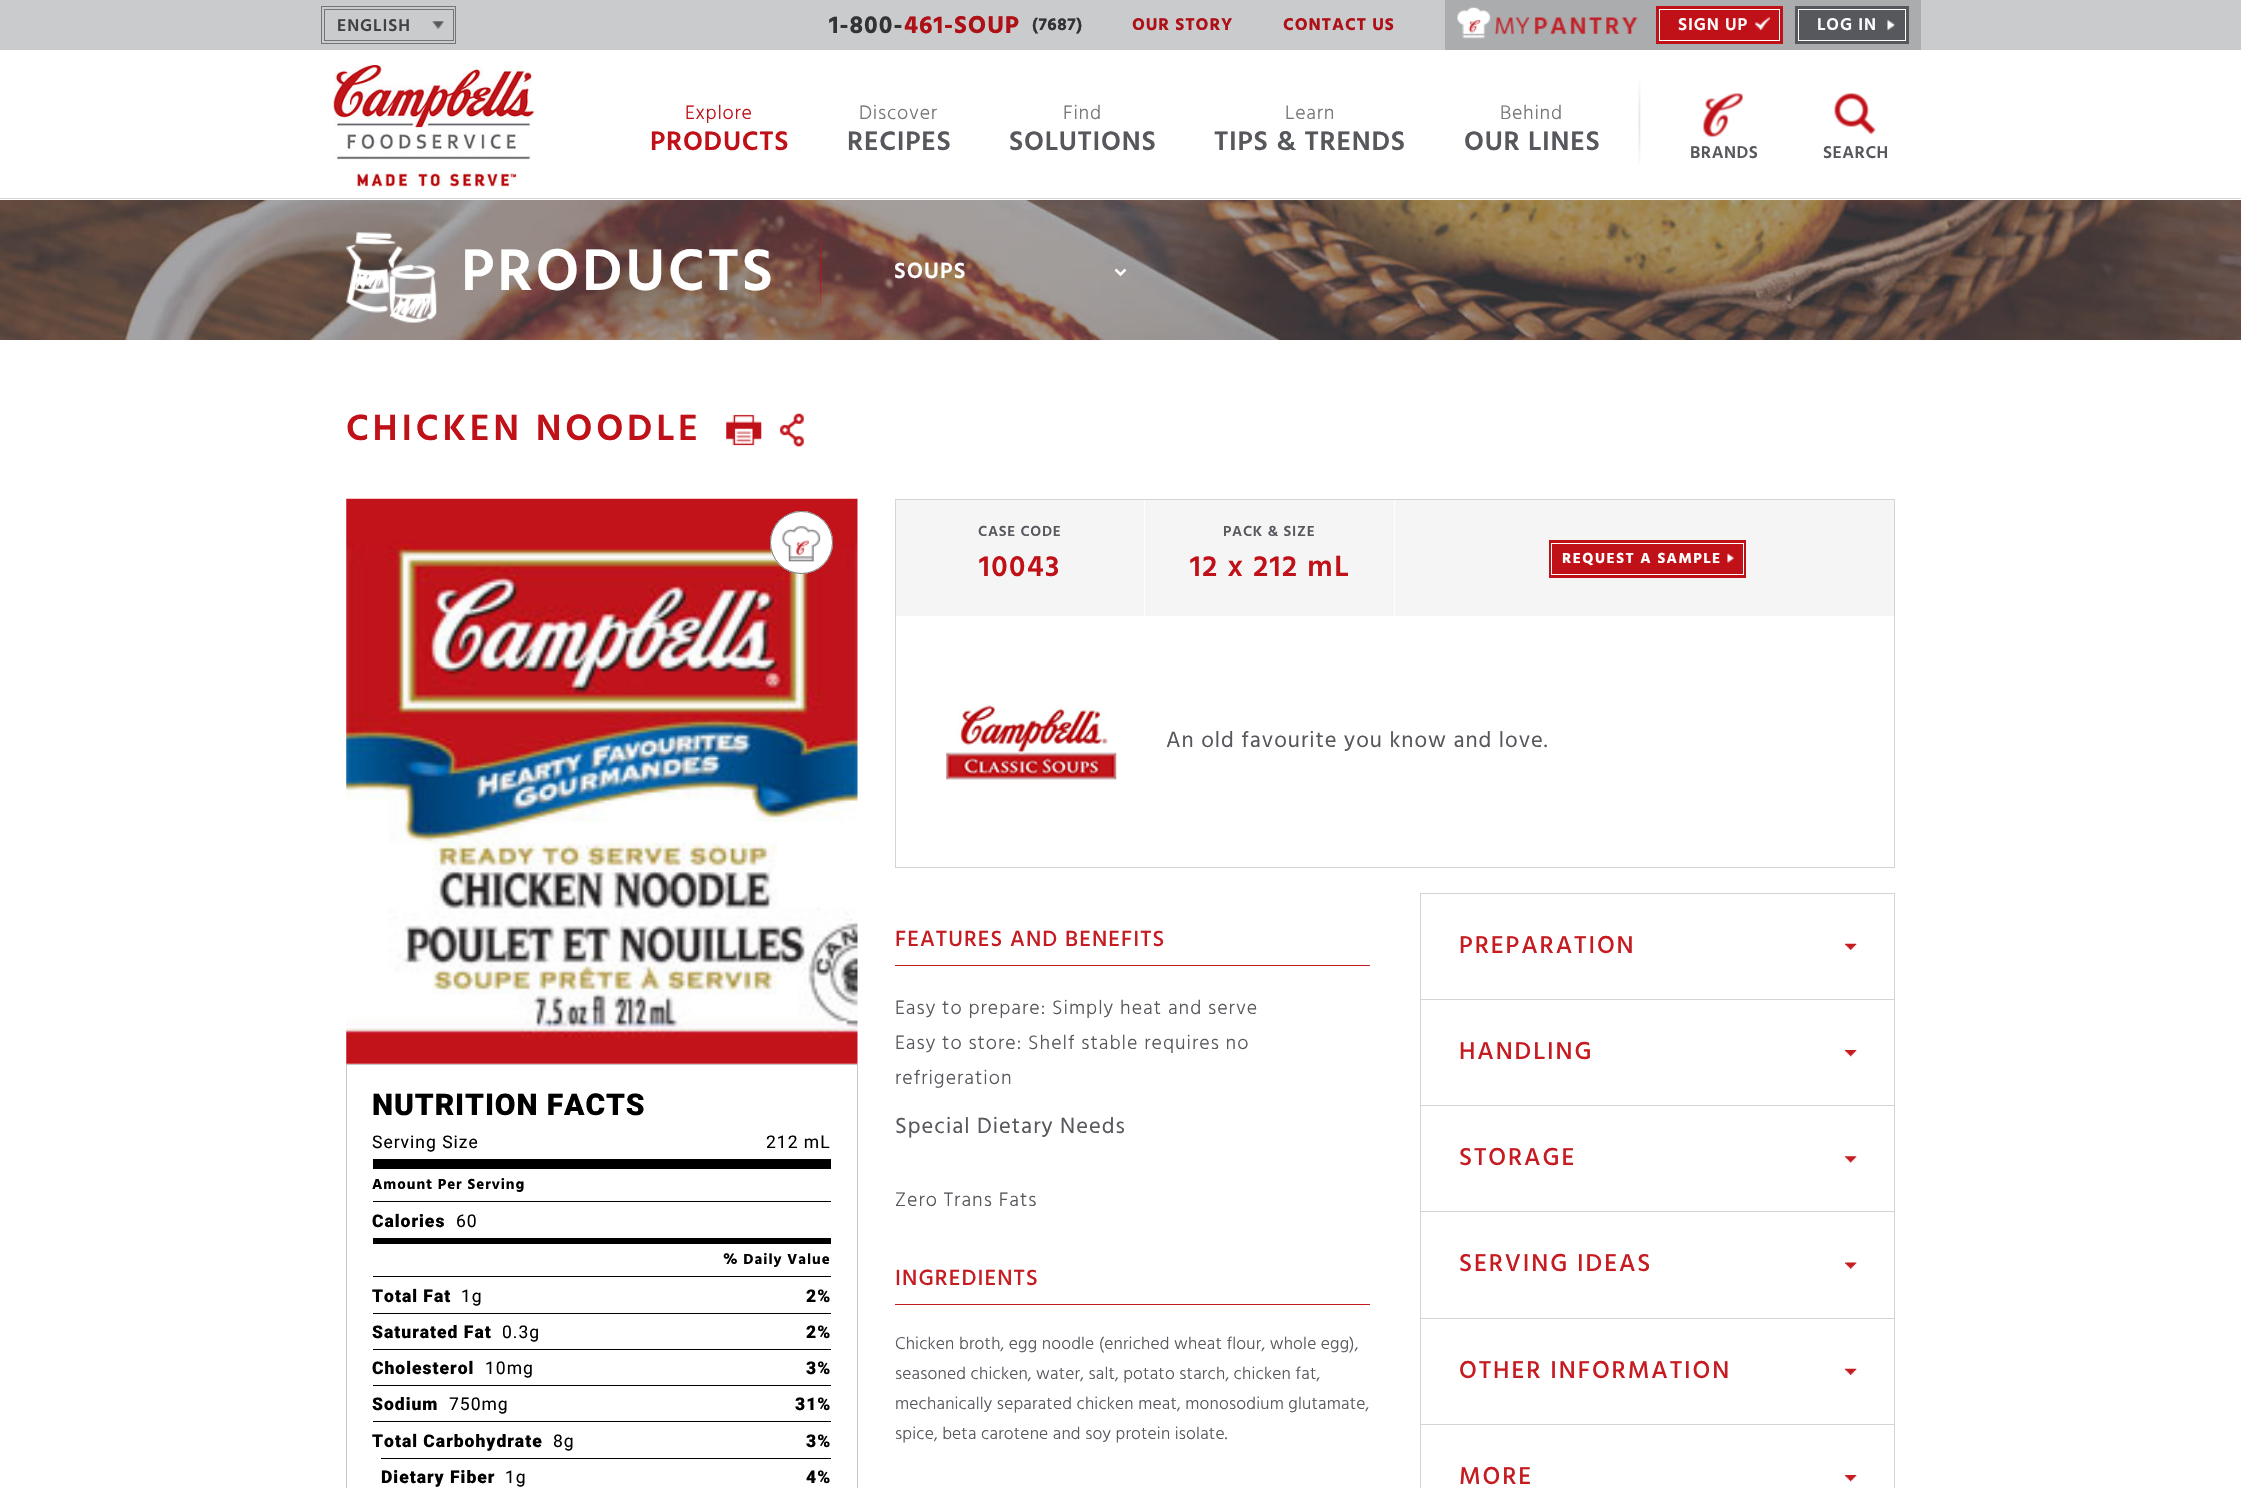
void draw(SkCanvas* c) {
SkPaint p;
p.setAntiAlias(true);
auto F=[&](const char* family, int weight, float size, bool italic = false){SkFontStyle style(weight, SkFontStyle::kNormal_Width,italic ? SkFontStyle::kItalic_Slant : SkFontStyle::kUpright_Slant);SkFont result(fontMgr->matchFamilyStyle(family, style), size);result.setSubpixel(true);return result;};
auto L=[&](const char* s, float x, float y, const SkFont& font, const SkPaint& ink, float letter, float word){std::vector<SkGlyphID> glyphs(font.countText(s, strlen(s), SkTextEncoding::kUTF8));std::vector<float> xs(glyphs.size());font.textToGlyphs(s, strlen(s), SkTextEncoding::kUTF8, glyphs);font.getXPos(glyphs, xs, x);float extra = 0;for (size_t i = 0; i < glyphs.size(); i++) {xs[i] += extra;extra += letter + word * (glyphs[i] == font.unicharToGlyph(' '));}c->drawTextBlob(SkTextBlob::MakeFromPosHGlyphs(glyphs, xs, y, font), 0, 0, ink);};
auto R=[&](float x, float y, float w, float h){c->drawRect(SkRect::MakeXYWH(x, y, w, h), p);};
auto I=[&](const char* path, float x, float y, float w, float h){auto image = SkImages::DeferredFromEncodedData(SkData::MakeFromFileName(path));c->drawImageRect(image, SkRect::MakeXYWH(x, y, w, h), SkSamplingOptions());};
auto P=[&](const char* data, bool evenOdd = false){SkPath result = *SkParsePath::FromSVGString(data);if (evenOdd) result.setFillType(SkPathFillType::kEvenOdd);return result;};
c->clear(0xffffffff);
p.setColor(0xffcacbcc);
R(0,0,2241,50);
p.setStroke(true);
p.setStrokeWidth(1);
p.setColor(0xff747578);
c->drawRect(SkRect::MakeXYWH(321.5,6.5,134,37),p);
I("1.png",432,21,12,8);
c->drawRect(SkRect::MakeXYWH(324.5,9.5,129,31),p);
auto f1 = F("Hind",600,17.5);
p.setStroke(false);
p.setColor(0xff414246);
L("ENGLISH",337,31,f1,p,.9,0);
auto f2 = F("Hind",700,25);
p.setColor(0xff323335);
L("1-800-",829,33,f2,p,1,0);
p.setColor(0xffad1017);
L("461-SOUP",904,33,f2,p,1,0);
auto f3 = F("Hind",700,17.5);
p.setColor(0xff323335);
L("(7687)",1032,30,f3,p,.5,0);
p.setColor(0xffad1017);
L("OUR STORY",1132,30,f3,p,.9,0);
L("CONTACT US",1283,30,f3,p,.9,0);
p.setColor(0xffabacae);
R(1445,0,476,50);
I("2.png",1457,7,181,32);
p.setColor(0xffc01119);
R(1656,6,127,38);
I("3.png",1755,17,15,14);
p.setStroke(true);
p.setColor(0xffffffff);
c->drawRect(SkRect::MakeXYWH(1659.5,9.5,120,31),p);
p.setStroke(false);
L("SIGN UP",1678,30,f1,p,.9,0);
p.setColor(0xff57585d);
R(1795,6,114,38);
I("4.png",1887,19,8,12);
p.setStroke(true);
p.setColor(0xffffffff);
c->drawRect(SkRect::MakeXYWH(1798.5,9.5,107,31),p);
p.setStroke(false);
L("LOG IN",1817,30,f1,p,.9,0);
I("5.png",333,65,201,122);
auto f4 = F("Hind",300,20);
p.setColor(0xffc01119);
L("Explore",685,119,f4,p,.75,0);
auto f5 = F("Hind",600,27.5);
L("PRODUCTS",650,150,f5,p,.75,0);
p.setColor(0xff747575);
L("Discover",859,119,f4,p,.75,0);
p.setColor(0xff57585d);
L("RECIPES",847,150,f5,p,.75,0);
p.setColor(0xff747575);
L("Find",1063,119,f4,p,.75,0);
p.setColor(0xff57585d);
L("SOLUTIONS",1009,150,f5,p,.75,0);
p.setColor(0xff747575);
L("Learn",1285,119,f4,p,.75,0);
p.setColor(0xff57585d);
L("TIPS & TRENDS",1214,150,f5,p,.75,0);
p.setColor(0xff747575);
L("Behind",1500,119,f4,p,.75,0);
p.setColor(0xff57585d);
L("OUR LINES",1464,150,f5,p,.75,0);
I("6.png",1638,81,3,84);
I("7.png",1703,93,40,44);
L("BRANDS",1690,158,f1,p,.5,0);
I("8.png",1834,93,42,42);
L("SEARCH",1823,158,f1,p,.5,0);
p.setColor(0xffd5d5d6);
R(0,198,2241,1);
I("9.png",0,200,2241,140);
I("10.png",346,232,91,91);
I("11.png",820,228,2,83);
auto f6 = F("Hind",600,60);
p.setColor(0xffffffff);
L("PRODUCTS",461,290,f6,p,3,0);
p.setStroke(true);
p.setStrokeWidth(2.5);
c->drawPath(P("M1115.5 269.5l5 5l5-5"),p);
auto f7 = F("Hind",600,22.5);
p.setStroke(false);
L("SOUPS",894,278,f7,p,1.1,0);
auto f8 = F("Hind",600,37.5);
p.setColor(0xffc01119);
L("CHICKEN NOODLE",346,440,f8,p,3.75,0);
I("12.png",726,414,36,32);
I("13.png",779,413,25,34);
I("14.png",346,498,512,566);
p.setColor(0xffffffff);
c->drawCircle(801.5,542.5,31.5,p);
I("15.png",782,526,39,36);
p.setStroke(true);
p.setStrokeWidth(1);
p.setColor(0xff747578);
c->drawCircle(801.5,542.5,31,p);
p.setColor(0xffc6c6c7);
c->drawRect(SkRect::MakeXYWH(346.5,1064.5,511,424),p);
auto f9 = F("Roboto",900,30);
p.setStroke(false);
p.setColor(0xff000000);
L("NUTRITION FACTS",372,1115,f9,p,.9,0);
auto f10 = F("Roboto",400,17.5);
L("Serving Size",372,1148,f10,p,1,0);
L("212 mL",766,1148,f10,p,1,0);
R(373,1159,458,10);
auto f11 = F("Hind",700,15);
L("Amount Per Serving",372,1189,f11,p,1,0);
R(373,1201,458,1);
auto f12 = F("Roboto",900,17.5);
L("Calories",372,1227,f12,p,1,0);
L("60",456,1227,f10,p,1,0);
R(373,1238,458,6);
L("% Daily Value",723,1264,f11,p,1,0);
R(373,1276,458,1);
L("Total Fat",372,1302,f12,p,1,0);
L("1g",461,1302,f10,p,1,0);
L("2%",806,1302,f12,p,1,0);
R(373,1313,458,1);
L("Saturated Fat",372,1338,f12,p,1,0);
L("0.3g",502,1338,f10,p,1,0);
L("2%",806,1338,f12,p,1,0);
R(373,1349,458,1);
L("Cholesterol",372,1374,f12,p,1,0);
L("10mg",485,1374,f10,p,1,0);
L("3%",806,1374,f12,p,1,0);
R(373,1385,458,1);
L("Sodium",372,1410,f12,p,1,0);
L("750mg",449,1410,f10,p,1,0);
L("31%",795,1410,f12,p,1,0);
R(373,1421,458,1);
L("Total Carbohydrate",372,1447,f12,p,1,0);
L("8g",553,1447,f10,p,1,0);
L("3%",806,1447,f12,p,1,0);
R(381,1458,450,1);
L("Dietary Fiber",381,1483,f12,p,1,0);
L("1g",505,1483,f10,p,1,0);
L("4%",806,1483,f12,p,1,0);
p.setStroke(true);
p.setColor(0xffd4d4d5);
c->drawRect(SkRect::MakeXYWH(895.5,499.5,999,368),p);
p.setStroke(false);
p.setColor(0xfff5f5f5);
R(896,500,248,116);
auto f13 = F("Hind",600,15);
p.setColor(0xff57585d);
L("CASE CODE",978,536,f13,p,.75,0);
auto f14 = F("Hind",600,30);
p.setColor(0xffc01119);
L("10043",979,576,f14,p,1.5,0);
p.setColor(0xfff5f5f5);
R(1145,500,249,116);
p.setColor(0xff57585d);
L("PACK & SIZE",1223,536,f13,p,.75,0);
p.setColor(0xffc01119);
L("12 x 212 mL",1190,576,f14,p,1.5,0);
p.setColor(0xfff5f5f5);
R(1395,500,499,116);
p.setColor(0xffc01119);
R(1549,540,197,38);
p.setStroke(true);
p.setColor(0xffffffff);
c->drawRect(SkRect::MakeXYWH(1551.5,543.5,192,31),p);
p.setStroke(false);
L("REQUEST A SAMPLE",1562,563,f11,p,1.5,0);
I("16.png",1727,553,7,10);
I("17.png",946,705,171,77);
auto f15 = F("Hind",400,22.5);
p.setColor(0xff57585d);
L("An old favourite you know and love.",1166,747,f15,p,1,0);
p.setColor(0xffc51b21);
R(895,965,475,1);
auto f16 = F("Hind",500,22.5);
L("FEATURES AND BENEFITS",895,946,f16,p,1.1,0);
p.setColor(0xff57585d);
L("Easy to prepare: Simply heat and serve",895,1014,f4,p,1,0);
L("Easy to store: Shelf stable requires no",895,1049,f4,p,1,0);
L("refrigeration",895,1084,f4,p,1,0);
L("Special Dietary Needs",895,1133,f15,p,1,0);
L("Zero Trans Fats",895,1206,f4,p,1,0);
p.setColor(0xffc51b21);
R(895,1304,475,1);
L("INGREDIENTS",895,1285,f16,p,1.1,0);
auto f17 = F("Hind",300,17.5);
p.setColor(0xff57585d);
L("Chicken broth, egg noodle (enriched wheat flour, whole egg),",895,1349,f17,p,.18,0);
L("seasoned chicken, water, salt, potato starch, chicken fat,",895,1379,f17,p,.18,0);
L("mechanically separated chicken meat, monosodium glutamate,",895,1409,f17,p,.18,0);
L("spice, beta carotene and soy protein isolate.",895,1439,f17,p,.18,0);
p.setStroke(true);
p.setColor(0xffd4d4d5);
c->drawRect(SkRect::MakeXYWH(1420.5,893.5,474,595),p);
I("18.png",1845,943,12,7);
auto f18 = F("Hind",500,25);
p.setStroke(false);
p.setColor(0xffc51b21);
L("PREPARATION",1459,953,f18,p,1.9,0);
I("19.png",1845,1050,12,7);
p.setColor(0xffd4d4d5);
R(1421,999,473,1);
p.setColor(0xffc51b21);
L("HANDLING",1459,1059,f18,p,1.9,0);
I("20.png",1845,1156,12,7);
p.setColor(0xffd4d4d5);
R(1421,1105,473,1);
p.setColor(0xffc51b21);
L("STORAGE",1459,1165,f18,p,1.9,0);
I("21.png",1845,1262,12,7);
p.setColor(0xffd4d4d5);
R(1421,1211,473,1);
p.setColor(0xffc51b21);
L("SERVING IDEAS",1459,1271,f18,p,1.9,0);
I("18.png",1845,1368,12,7);
p.setColor(0xffd4d4d5);
R(1421,1318,473,1);
p.setColor(0xffc51b21);
L("OTHER INFORMATION",1459,1378,f18,p,1.9,0);
I("19.png",1845,1475,12,7);
p.setColor(0xffd4d4d5);
R(1421,1424,473,1);
p.setColor(0xffc51b21);
L("MORE",1459,1484,f18,p,1.9,0);
}
